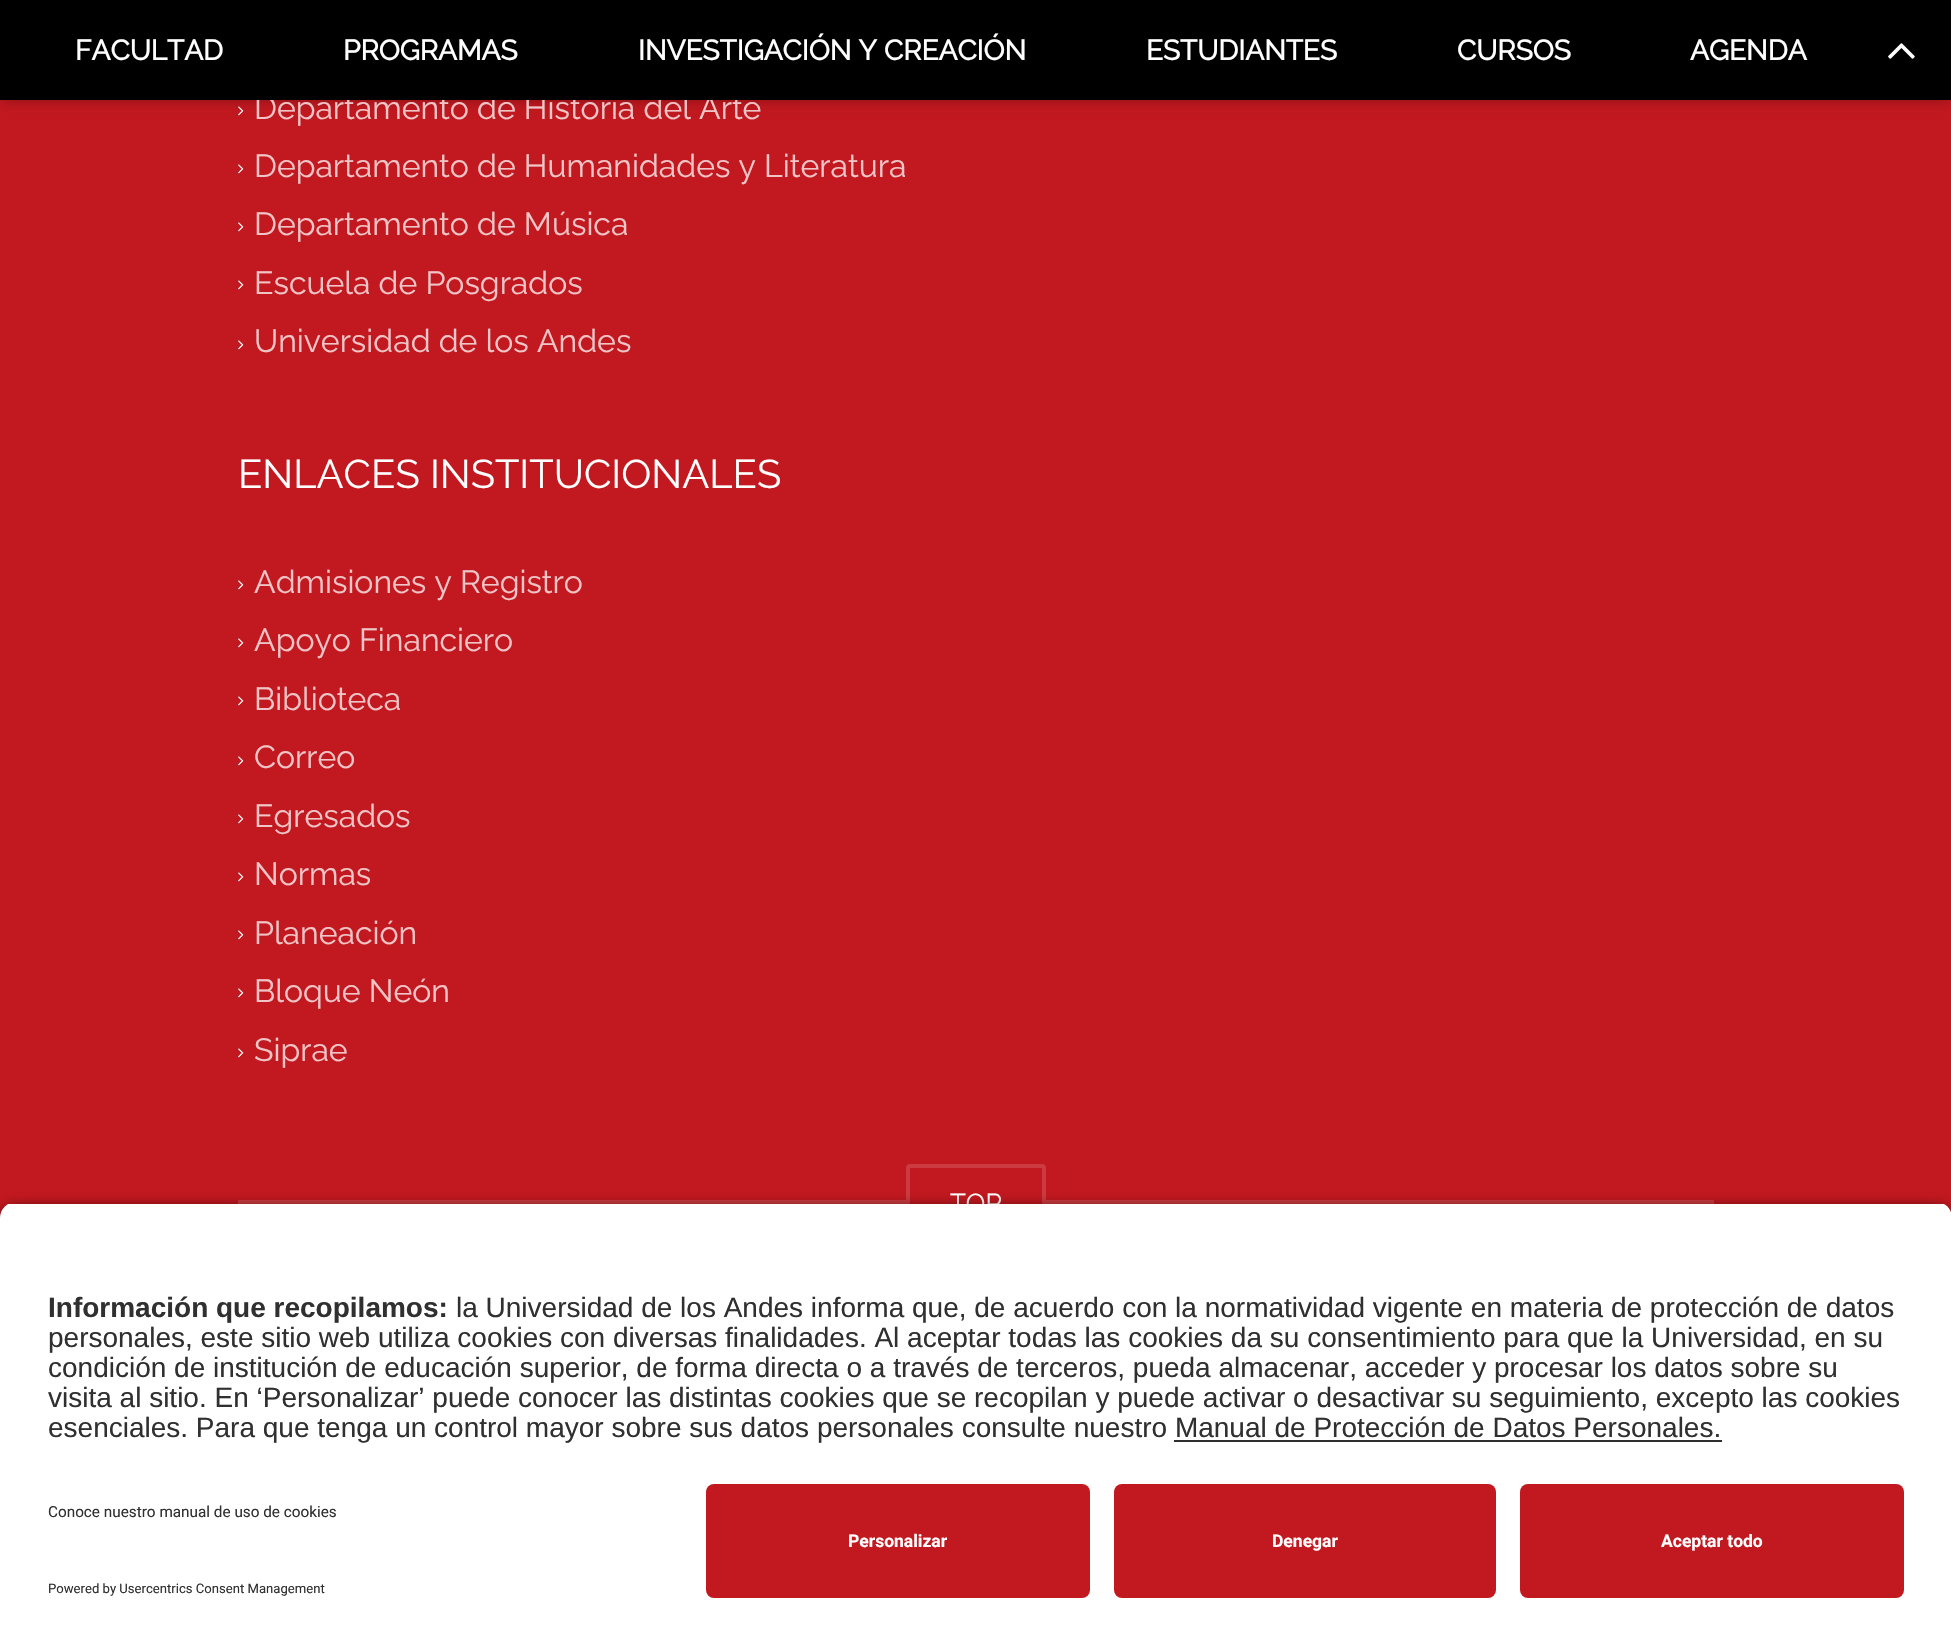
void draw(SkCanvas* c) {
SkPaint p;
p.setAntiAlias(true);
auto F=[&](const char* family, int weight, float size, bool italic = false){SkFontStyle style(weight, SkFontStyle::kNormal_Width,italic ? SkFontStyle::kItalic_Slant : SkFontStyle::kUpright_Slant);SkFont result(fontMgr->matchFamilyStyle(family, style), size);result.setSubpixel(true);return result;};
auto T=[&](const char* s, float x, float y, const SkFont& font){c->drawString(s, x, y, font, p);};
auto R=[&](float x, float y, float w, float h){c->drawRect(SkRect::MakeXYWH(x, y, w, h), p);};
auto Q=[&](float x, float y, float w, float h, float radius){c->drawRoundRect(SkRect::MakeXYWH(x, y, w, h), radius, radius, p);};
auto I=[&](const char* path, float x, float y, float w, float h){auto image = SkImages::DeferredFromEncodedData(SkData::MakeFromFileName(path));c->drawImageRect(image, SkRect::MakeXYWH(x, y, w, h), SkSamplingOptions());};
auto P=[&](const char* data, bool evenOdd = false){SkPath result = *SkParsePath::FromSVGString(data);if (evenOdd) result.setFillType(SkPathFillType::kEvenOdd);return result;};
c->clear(0xffc2181f);
I("2.png",238,106,6,10);
p.setColor(0x66000000);
p.setMaskFilter(SkMaskFilter::MakeBlur(kNormal_SkBlurStyle, 7));
c->drawRect(SkRect::MakeXYWH(2,2,1948,96),p);
p.setMaskFilter(nullptr);
auto f1 = F("Raleway",100,32);
p.setColor(0xfff0c5c7);
T("Departamento de Historia del Arte",254,119,f1);
p.setColor(0xff000000);
R(0,0,1951,100);
auto f2 = F("Raleway",700,28);
p.setColor(0xffffffff);
T("FACULTAD",75,60,f2);
T("PROGRAMAS",343,60,f2);
T("INVESTIGACIÓN Y CREACIÓN",638,60,f2);
T("ESTUDIANTES",1146,60,f2);
T("CURSOS",1457,60,f2);
T("AGENDA",1690,60,f2);
I("1.png",1888,43,27,16);
I("2.png",238,164,6,10);
p.setColor(0xfff0c5c7);
T("Departamento de Humanidades y Literatura",254,177,f1);
I("2.png",238,222,6,10);
T("Departamento de Música",254,235,f1);
I("2.png",238,280,6,10);
T("Escuela de Posgrados",254,294,f1);
I("2.png",238,340,6,10);
T("Universidad de los Andes",254,352,f1);
auto f3 = F("Raleway",100,40);
p.setColor(0xffffffff);
T("ENLACES INSTITUCIONALES",238,488,f3);
I("2.png",238,580,6,10);
p.setColor(0xfff0c5c7);
T("Admisiones y Registro",254,593,f1);
I("2.png",238,638,6,10);
T("Apoyo Financiero",254,651,f1);
I("2.png",238,696,6,10);
T("Biblioteca",254,710,f1);
I("2.png",238,756,6,10);
T("Correo",254,768,f1);
I("2.png",238,814,6,10);
T("Egresados",254,827,f1);
I("2.png",238,872,6,10);
T("Normas",254,885,f1);
I("2.png",238,930,6,10);
T("Planeación",254,944,f1);
I("2.png",238,988,6,10);
T("Bloque Neón",254,1002,f1);
I("2.png",238,1048,6,10);
T("Siprae",254,1061,f1);
p.setColor(0xffcb3b41);
R(238,1200,1476,4);
p.setColor(0xffc2181f);
c->drawRoundRect(SkRect::MakeXYWH(908,1166,136,78),2,2,p);
p.setStroke(true);
p.setStrokeWidth(4);
p.setColor(0xffcb3b41);
c->drawRoundRect(SkRect::MakeXYWH(908,1166,136,78),2,2,p);
auto f4 = F("Raleway",100,26);
p.setStroke(false);
p.setColor(0xffffffff);
T("TOP",950,1212,f4);
p.setColor(0xcc000000);
p.setMaskFilter(SkMaskFilter::MakeBlur(kNormal_SkBlurStyle, 7));
c->drawRoundRect(SkRect::MakeXYWH(0,1208,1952,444),16,16,p);
p.setMaskFilter(nullptr);
c->save();
c->clipPath(P("M16 1202h1920c9 0 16 7 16 16v250h-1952v-250c0-9 7-16 16-16z"),true);
p.setColor(0xffffffff);
R(0,1204,1951,264);
c->restore();
auto f5 = F("Liberation Sans",700,28);
p.setColor(0xff303030);
T("Información que recopilamos:",48,1317,f5);
auto f6 = F("Liberation Sans",400,28);
T("la Universidad de los Andes informa que, de acuerdo con la normatividad vigente en materia de protección de datos",456,1317,f6);
T("personales, este sitio web utiliza cookies con diversas finalidades. Al aceptar todas las cookies da su consentimiento para que la Universidad, en su",48,1347,f6);
T("condición de institución de educación superior, de forma directa o a través de terceros, pueda almacenar, acceder y procesar los datos sobre su",48,1377,f6);
T("visita al sitio. En ‘Personalizar’ puede conocer las distintas cookies que se recopilan y puede activar o desactivar su seguimiento, excepto las cookies",48,1407,f6);
T("esenciales. Para que tenga un control mayor sobre sus datos personales consulte nuestro Manual de Protección de Datos Personales.",48,1437,f6);
R(1174,1440,548,2);
p.setColor(0xffffffff);
R(0,1468,1951,178);
auto f7 = F("Roboto",400,15.3);
p.setColor(0xff303030);
T("Conoce nuestro manual de uso de cookies",48,1517,f7);
auto f8 = F("Roboto",400,13.1);
T("Powered by Usercentrics Consent Management",48,1593,f8);
p.setColor(0xffc2181f);
Q(706,1484,384,114,8);
auto f9 = F("Roboto",700,17.5);
p.setColor(0xffffffff);
T("Personalizar",848,1547,f9);
p.setColor(0xffc2181f);
Q(1114,1484,382,114,8);
p.setColor(0xffffffff);
T("Denegar",1272,1547,f9);
p.setColor(0xffc2181f);
Q(1520,1484,384,114,8);
p.setColor(0xffffffff);
T("Aceptar todo",1661,1547,f9);
}
